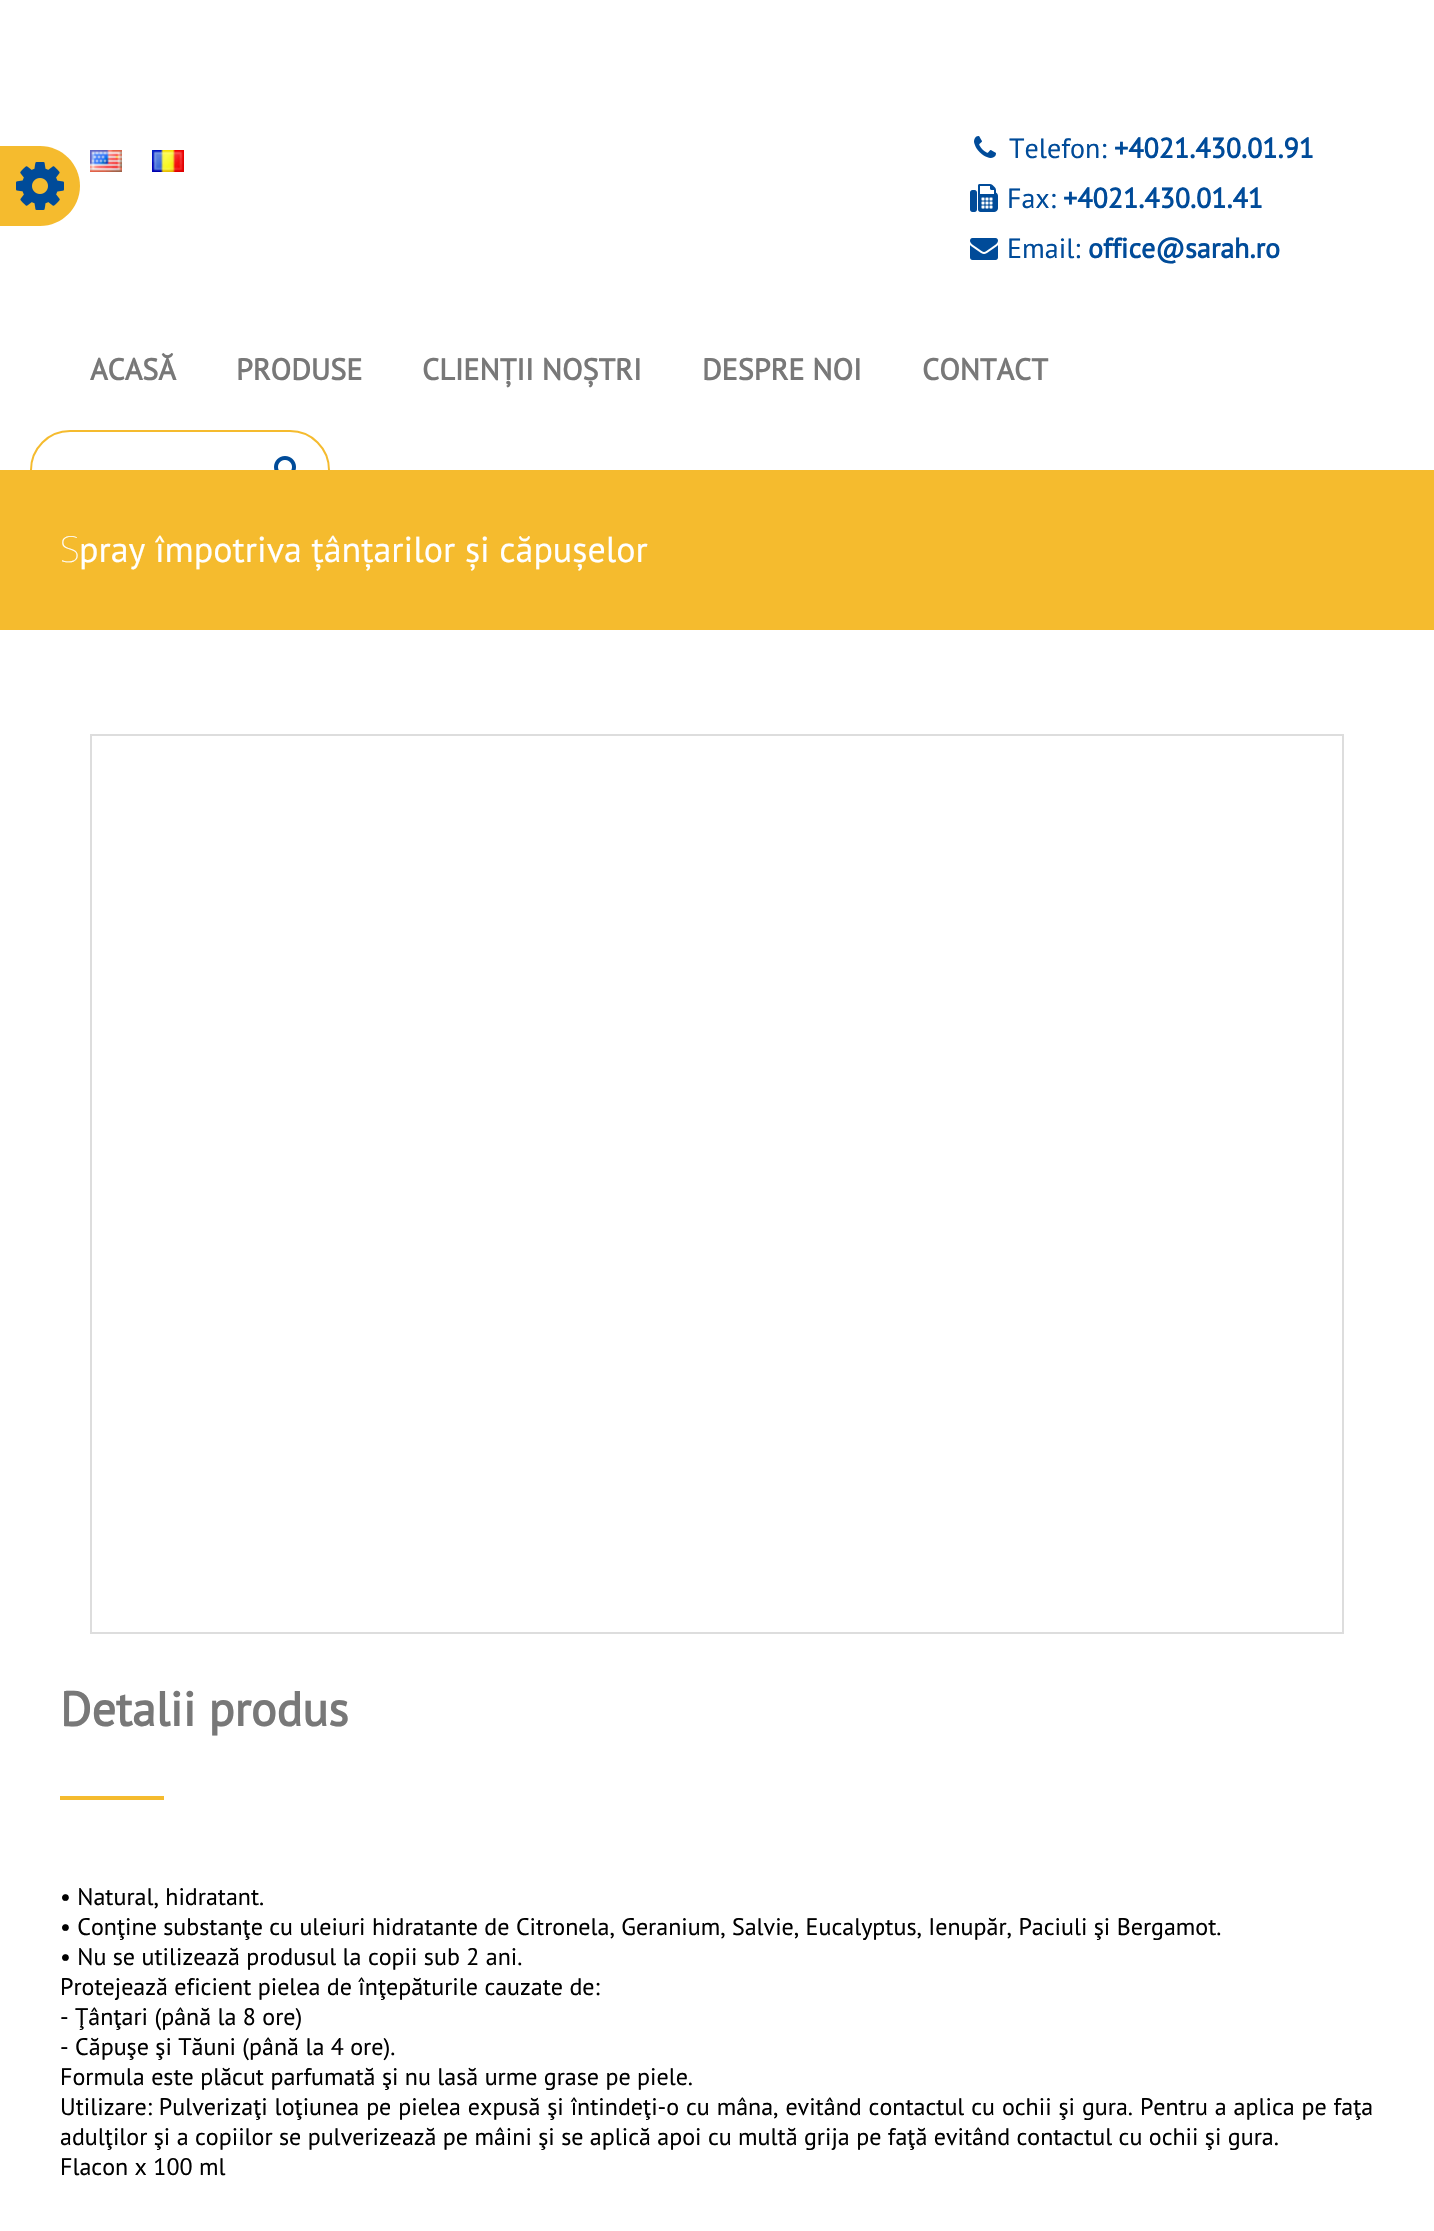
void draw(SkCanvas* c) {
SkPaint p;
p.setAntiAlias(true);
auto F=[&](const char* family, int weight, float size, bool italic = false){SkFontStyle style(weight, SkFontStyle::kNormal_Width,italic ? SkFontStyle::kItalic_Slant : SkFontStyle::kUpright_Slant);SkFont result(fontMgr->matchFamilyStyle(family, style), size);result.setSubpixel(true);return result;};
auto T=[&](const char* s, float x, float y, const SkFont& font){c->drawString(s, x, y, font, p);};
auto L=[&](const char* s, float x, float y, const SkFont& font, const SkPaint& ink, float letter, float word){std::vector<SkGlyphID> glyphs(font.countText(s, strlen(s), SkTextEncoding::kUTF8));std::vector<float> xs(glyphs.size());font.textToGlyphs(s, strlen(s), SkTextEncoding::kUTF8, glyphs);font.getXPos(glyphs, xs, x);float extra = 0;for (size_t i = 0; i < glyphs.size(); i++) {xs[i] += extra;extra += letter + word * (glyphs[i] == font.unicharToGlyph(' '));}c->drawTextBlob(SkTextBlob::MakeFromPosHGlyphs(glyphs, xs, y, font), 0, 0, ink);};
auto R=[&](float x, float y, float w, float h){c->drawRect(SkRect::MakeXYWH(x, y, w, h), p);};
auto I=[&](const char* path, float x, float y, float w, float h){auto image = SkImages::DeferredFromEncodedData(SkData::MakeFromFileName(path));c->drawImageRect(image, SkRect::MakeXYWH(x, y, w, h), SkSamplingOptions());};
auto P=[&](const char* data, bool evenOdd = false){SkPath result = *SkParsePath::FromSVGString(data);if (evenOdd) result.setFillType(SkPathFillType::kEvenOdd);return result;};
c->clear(0xffffffff);
I("1.png",90,150,32,22);
I("2.png",152,150,32,22);
I("3.png",974,136,22,22);
auto f1 = F("PT Sans",400,28);
p.setColor(0xff004b99);
T("Telefon:",1009,158,f1);
auto f2 = F("PT Sans",700,28);
T("+4021.430.01.91",1114,158,f2);
I("4.png",970,184,28,28);
T("Fax:",1007,208,f1);
T("+4021.430.01.41",1063,208,f2);
I("5.png",970,238,28,22);
T("Email:",1007,258,f1);
T("office@sarah.ro",1088,258,f2);
p.setColor(0xfff5bb2e);
c->drawPath(P("M0 146h40c22 0 40 18 40 40c0 22-18 40-40 40h-40z"),p);
I("6.png",16,162,48,48);
auto f3 = F("PT Sans",700,30);
p.setColor(0xff787878);
T("ACASĂ",90,380,f3);
T("PRODUSE",236,380,f3);
T("CLIENȚII NOȘTRI",422,380,f3);
T("DESPRE NOI",702,380,f3);
T("CONTACT",922,380,f3);
p.setStroke(true);
p.setStrokeWidth(2);
p.setColor(0xfff5bb2e);
c->drawRoundRect(SkRect::MakeXYWH(31,431,298,78),39,39,p);
I("7.png",274,456,22,14);
p.setStroke(false);
R(0,470,1434,160);
auto f4 = F("Noto Sans",100,36);
p.setColor(0xffffffff);
T("S",60,562,f4);
auto f5 = F("PT Sans",400,36);
T("pray împotriva țânțarilor și căpușelor",79,562,f5);
p.setStroke(true);
p.setColor(0xffdddddd);
c->drawRect(SkRect::MakeXYWH(91,735,1252,898),p);
auto f6 = F("PT Sans",700,48);
p.setStroke(false);
p.setColor(0xff787878);
T("Detalii produs",60,1726,f6);
p.setColor(0xfff5bb2e);
R(60,1796,104,4);
auto f7 = F("PT Sans",400,24);
p.setColor(0xff000000);
T("• Natural, hidratant.",60,1905,f7);
T("• Conţine substanţe cu uleiuri hidratante de Citronela, Geranium, Salvie, Eucalyptus, Ienupăr, Paciuli şi Bergamot.",60,1935,f7);
T("• Nu se utilizează produsul la copii sub 2 ani.",60,1965,f7);
T("Protejează eficient pielea de înţepăturile cauzate de:",60,1995,f7);
T("- Ţânţari (până la 8 ore)",60,2025,f7);
T("- Căpuşe şi Tăuni (până la 4 ore).",60,2055,f7);
T("Formula este plăcut parfumată şi nu lasă urme grase pe piele.",60,2085,f7);
L("Utilizare: Pulverizaţi loţiunea pe pielea expusă şi întindeţi-o cu mâna, evitând contactul cu ochii şi gura. Pentru a aplica pe faţa",60,2115,f7,p,0,.5);
T("adulţilor şi a copiilor se pulverizează pe mâini şi se aplică apoi cu multă grija pe faţă evitând contactul cu ochii şi gura.",60,2145,f7);
T("Flacon x 100 ml",60,2175,f7);
}
